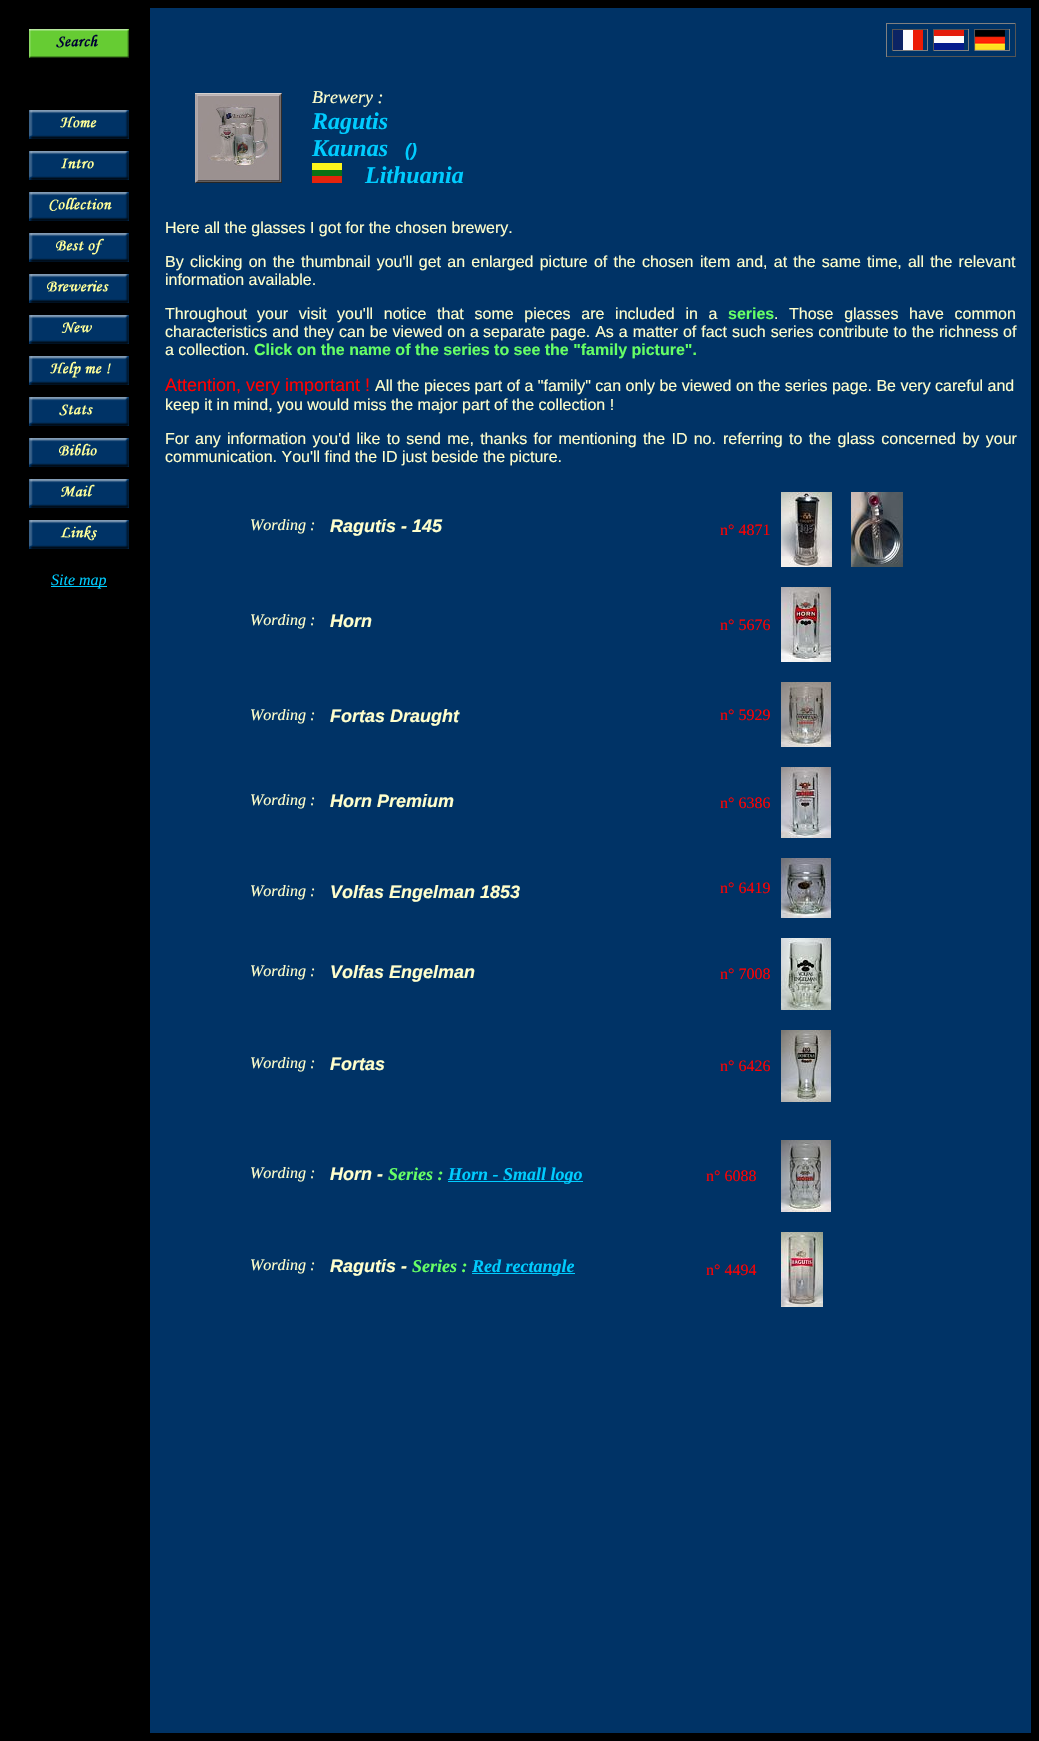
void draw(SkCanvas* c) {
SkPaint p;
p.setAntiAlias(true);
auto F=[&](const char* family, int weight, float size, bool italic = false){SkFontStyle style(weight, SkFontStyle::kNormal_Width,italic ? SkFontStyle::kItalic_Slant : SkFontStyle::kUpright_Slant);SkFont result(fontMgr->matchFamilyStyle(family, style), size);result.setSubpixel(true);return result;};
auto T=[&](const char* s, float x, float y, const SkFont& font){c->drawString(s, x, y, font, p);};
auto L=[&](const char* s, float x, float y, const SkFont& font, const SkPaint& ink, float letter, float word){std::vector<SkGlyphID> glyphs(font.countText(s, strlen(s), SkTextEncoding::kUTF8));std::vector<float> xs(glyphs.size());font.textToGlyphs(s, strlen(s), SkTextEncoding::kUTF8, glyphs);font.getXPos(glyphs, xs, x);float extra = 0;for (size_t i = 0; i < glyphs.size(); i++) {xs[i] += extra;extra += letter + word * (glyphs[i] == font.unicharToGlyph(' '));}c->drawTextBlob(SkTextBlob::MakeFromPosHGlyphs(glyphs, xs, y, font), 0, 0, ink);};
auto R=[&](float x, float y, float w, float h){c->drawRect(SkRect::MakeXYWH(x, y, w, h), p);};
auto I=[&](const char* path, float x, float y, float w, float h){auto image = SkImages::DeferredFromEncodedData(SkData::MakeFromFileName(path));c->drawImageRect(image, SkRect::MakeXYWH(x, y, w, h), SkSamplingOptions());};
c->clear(0xff000000);
p.setColor(0xff003366);
R(150,8,881,1725);
I("1.png",195,93,87,90);
auto f1 = F("Liberation Serif",400,18,true);
p.setColor(0xffffffcc);
T("Brewery :",312,103,f1);
auto f2 = F("Liberation Serif",700,24,true);
p.setColor(0xff00ccff);
T("Ragutis",312,129,f2);
T("Kaunas",312,156,f2);
auto f3 = F("Liberation Sans",700,18,true);
T("()",405,156,f3);
I("2.png",312,163,30,20);
T("Lithuania",365,183,f2);
I("3.png",29,29,100,29);
I("4.png",29,110,100,29);
I("5.png",29,151,100,29);
I("6.png",29,192,100,29);
I("7.png",29,233,100,29);
I("8.png",29,274,100,29);
I("9.png",29,315,100,29);
I("10.png",29,356,100,29);
I("11.png",29,397,100,29);
I("12.png",29,438,100,29);
I("13.png",29,479,100,29);
I("14.png",29,520,100,29);
R(51,586,56,1);
auto f4 = F("Liberation Serif",400,16,true);
T("Site map",51,585,f4);
p.setColor(0xff808080);
R(886,23,130,1);
p.setColor(0xff555555);
R(1015,23,1,34);
R(886,56,130,1);
p.setColor(0xff808080);
R(886,23,1,34);
p.setColor(0xff555555);
R(892,29,36,1);
p.setColor(0xff808080);
R(927,29,1,22);
R(892,50,36,1);
p.setColor(0xff555555);
R(892,29,1,22);
I("15.png",893,30,30,20);
R(933,29,36,1);
p.setColor(0xff808080);
R(968,29,1,22);
R(933,50,36,1);
p.setColor(0xff555555);
R(933,29,1,22);
I("16.png",934,30,30,20);
R(974,29,36,1);
p.setColor(0xff808080);
R(1009,29,1,22);
R(974,50,36,1);
p.setColor(0xff555555);
R(974,29,1,22);
I("17.png",975,30,30,20);
auto f5 = F("Liberation Sans",400,16);
p.setColor(0xffffffcc);
T("Here all the glasses I got for the chosen brewery.",165,233,f5);
T("By",165,267,f5);
L("clicking on the thumbnail you'll get an enlarged picture of the chosen",190,267,f5,p,0,1.75);
L("item and, at the same time, all the relevant",700,267,f5,p,0,1.75);
T("information available.",165,285,f5);
T("Throughout",165,319,f5);
L("your visit you'll notice that some pieces are included in a",257,319,f5,p,0,6.25);
auto f6 = F("Liberation Sans",700,16);
p.setColor(0xff66ff66);
T("series",728,319,f6);
p.setColor(0xffffffcc);
T(".",774,319,f5);
L("Those glasses have common",789,319,f5,p,0,6.25);
L("characteristics and they can be viewed on a",165,337,f5,p,0,.5);
L("separate page. As a matter of fact such series contribute to the richness",483,337,f5,p,0,.5);
T("of",1003,337,f5);
T("a collection.",165,355,f5);
p.setColor(0xff66ff66);
T("Click on the name of the series to see the \"family picture\".",254,355,f6);
auto f7 = F("Liberation Sans",400,18);
p.setColor(0xffff0000);
T("Attention, very important !",165,391,f7);
p.setColor(0xffffffcc);
T("All the pieces part of a \"family\" can only be viewed on the series page. Be very careful and",375,391,f5);
T("keep it in mind, you would miss the major part of the collection !",165,410,f5);
T("For",165,444,f5);
L("any information you'd like to send me, thanks for mentioning the ID no.",195,444,f5,p,0,1.8);
L("referring to the glass concerned by your",723,444,f5,p,0,2);
T("communication. You'll find the ID just beside the picture.",165,462,f5);
T("Wording :",250,530,f4);
T("Ragutis - 145",330,532,f3);
auto f8 = F("Liberation Serif",400,16);
p.setColor(0xffff0000);
T("n° 4871",720,535,f8);
I("18.png",781,492,51,75);
I("19.png",851,492,52,75);
p.setColor(0xffffffcc);
T("Wording :",250,625,f4);
T("Horn",330,627,f3);
p.setColor(0xffff0000);
T("n° 5676",720,630,f8);
I("20.png",781,587,50,75);
p.setColor(0xffffffcc);
T("Wording :",250,720,f4);
T("Fortas Draught",330,722,f3);
p.setColor(0xffff0000);
T("n° 5929",720,720,f8);
I("21.png",781,682,50,65);
p.setColor(0xffffffcc);
T("Wording :",250,805,f4);
T("Horn Premium",330,807,f3);
p.setColor(0xffff0000);
T("n° 6386",720,808,f8);
I("22.png",781,767,50,71);
p.setColor(0xffffffcc);
T("Wording :",250,896,f4);
T("Volfas Engelman 1853",330,898,f3);
p.setColor(0xffff0000);
T("n° 6419",720,893,f8);
I("23.png",781,858,50,60);
p.setColor(0xffffffcc);
T("Wording :",250,976,f4);
T("Volfas Engelman",330,978,f3);
p.setColor(0xffff0000);
T("n° 7008",720,979,f8);
I("24.png",781,938,50,72);
p.setColor(0xffffffcc);
T("Wording :",250,1068,f4);
T("Fortas",330,1070,f3);
p.setColor(0xffff0000);
T("n° 6426",720,1071,f8);
I("25.png",781,1030,50,72);
p.setColor(0xffffffcc);
T("Wording :",250,1178,f4);
T("Horn -",330,1180,f3);
auto f9 = F("Liberation Serif",700,18,true);
p.setColor(0xff66ff66);
T("Series :",388,1180,f9);
p.setColor(0xff00ccff);
R(448,1181,135,1);
T("Horn - Small logo",448,1180,f9);
p.setColor(0xffff0000);
T("n° 6088",706,1181,f8);
I("26.png",781,1140,50,72);
p.setColor(0xffffffcc);
T("Wording :",250,1270,f4);
T("Ragutis -",330,1272,f3);
p.setColor(0xff66ff66);
T("Series :",412,1272,f9);
p.setColor(0xff00ccff);
R(472,1273,103,1);
T("Red rectangle",472,1272,f9);
p.setColor(0xffff0000);
T("n° 4494",706,1275,f8);
I("27.png",781,1232,42,75);
}
